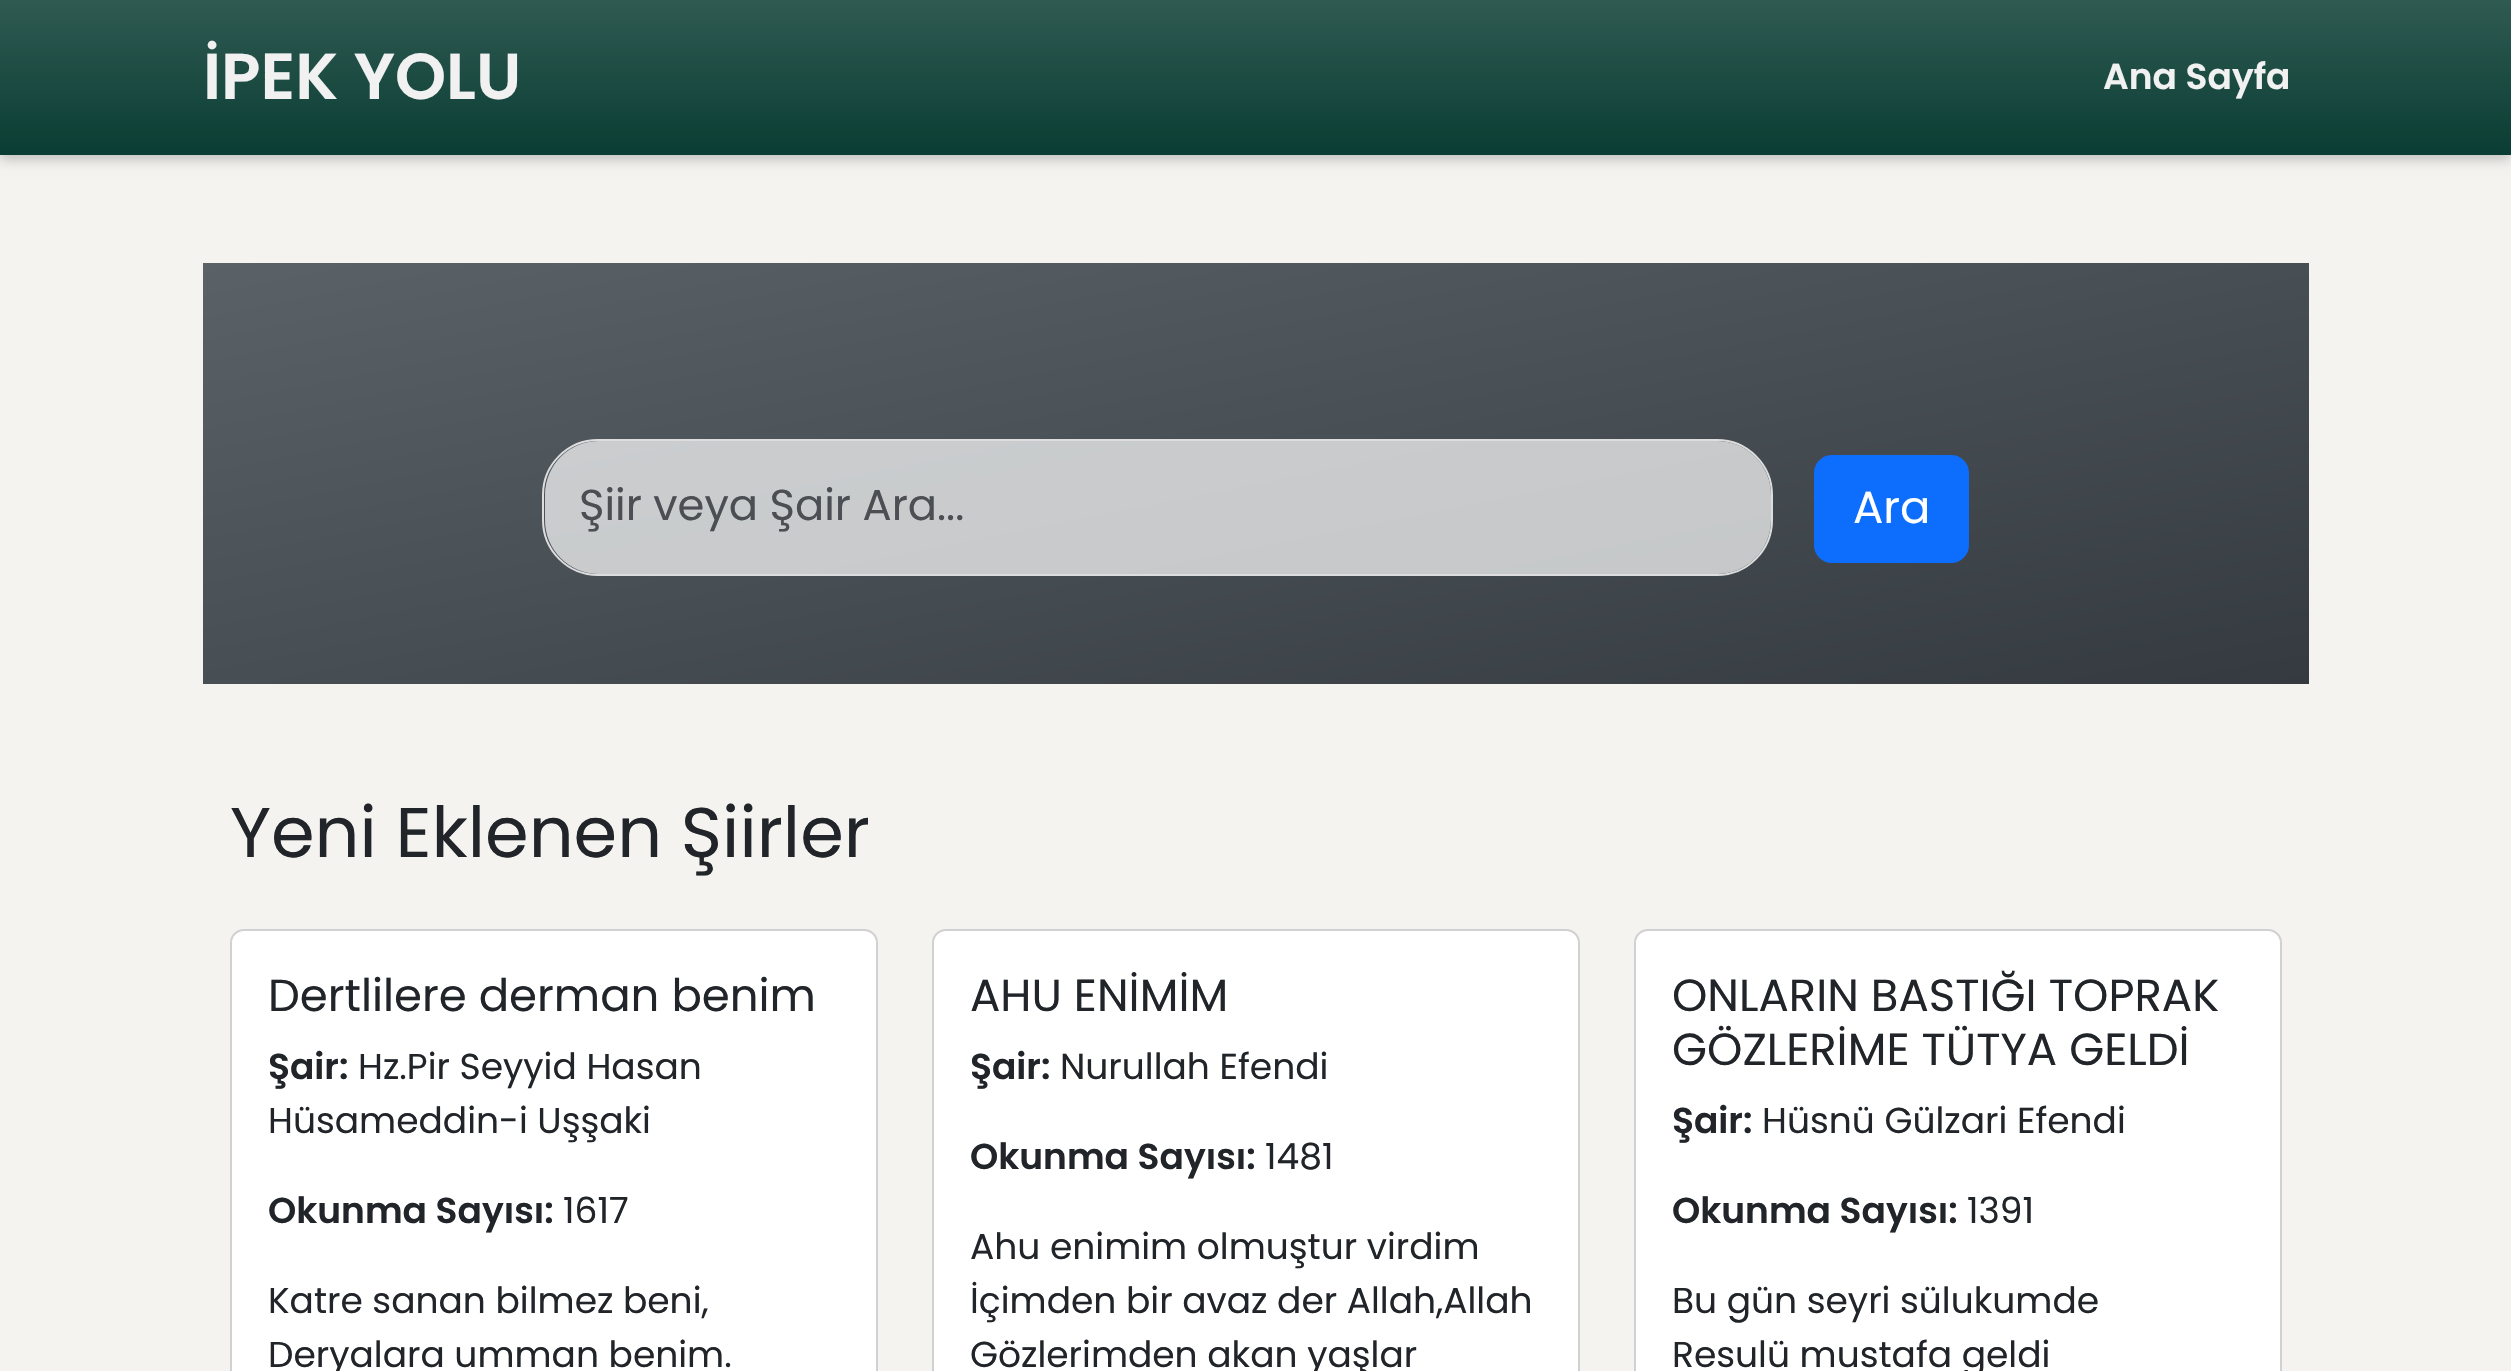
void draw(SkCanvas* c) {
SkPaint p;
p.setAntiAlias(true);
auto F=[&](const char* family, int weight, float size, bool italic = false){SkFontStyle style(weight, SkFontStyle::kNormal_Width,italic ? SkFontStyle::kItalic_Slant : SkFontStyle::kUpright_Slant);SkFont result(fontMgr->matchFamilyStyle(family, style), size);result.setSubpixel(true);return result;};
auto T=[&](const char* s, float x, float y, const SkFont& font){c->drawString(s, x, y, font, p);};
auto R=[&](float x, float y, float w, float h){c->drawRect(SkRect::MakeXYWH(x, y, w, h), p);};
auto Q=[&](float x, float y, float w, float h, float radius){c->drawRoundRect(SkRect::MakeXYWH(x, y, w, h), radius, radius, p);};
c->clear(0xfff4f3f0);
p.setColor(0x33000000);
p.setMaskFilter(SkMaskFilter::MakeBlur(kNormal_SkBlurStyle, 5.5));
c->drawRect(SkRect::MakeXYWH(0,5,2511,155),p);
p.setMaskFilter(nullptr);
{
const SkColor colors[] = {0xff2f5a52,0xff0a3d33};
const float stops[] = {0,1};
const SkPoint ends[] = {{1256,0}, {1256,155}};
p.setShader(SkGradientShader::MakeLinear(ends, colors, stops, 2, SkTileMode::kClamp));
p.setAlpha(255);
}
R(0,0,2511,155);
auto f1 = F("Poppins",600,65);
p.setShader(nullptr);
p.setColor(0xfff1f1f1);
T("İPEK YOLU",203,99,f1);
auto f2 = F("Poppins",600,36);
T("Ana Sayfa",2103,89,f2);
{
const SkColor colors[] = {0xff5a6268,0xff343a40};
const float stops[] = {0,1};
const SkPoint ends[] = {{1175,69}, {1336,878}};
p.setShader(SkGradientShader::MakeLinear(ends, colors, stops, 2, SkTileMode::kClamp));
p.setAlpha(255);
}
R(203,263,2106,421);
p.setShader(nullptr);
p.setColor(0xb3ffffff);
Q(545,441,1226,133,54);
p.setStroke(true);
p.setStrokeWidth(2);
p.setColor(0xffdddddd);
c->drawRoundRect(SkRect::MakeXYWH(543,440,1229,135),55,55,p);
auto f3 = F("Poppins",400,43.25);
p.setStroke(false);
p.setColor(0xff4b4e52);
T("Şiir veya Şair Ara...",579,520,f3);
p.setColor(0xff0d6efd);
c->drawRoundRect(SkRect::MakeXYWH(1815,456,153,106),17,17,p);
p.setStroke(true);
c->drawRoundRect(SkRect::MakeXYWH(1815,456,153,106),17,17,p);
auto f4 = F("Poppins",400,45);
p.setStroke(false);
p.setColor(0xffffffff);
T("Ara",1853,523,f4);
auto f5 = F("Poppins",400,70.25);
p.setColor(0xff212529);
T("Yeni Eklenen Şiirler",230,857,f5);
p.setColor(0xffffffff);
Q(230,929,648,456,14);
p.setStroke(true);
p.setColor(0x2e000000);
c->drawRoundRect(SkRect::MakeXYWH(231,930,646,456),13,13,p);
p.setStroke(false);
p.setColor(0xff212529);
T("Dertlilere derman benim",268,1011,f4);
T("Şair:",268,1079,f2);
auto f6 = F("Poppins",400,36);
T("Hz.Pir Seyyid Hasan",358,1079,f6);
T("Hüsameddin-i Uşşaki",268,1133,f6);
T("Okunma Sayısı:",268,1223,f2);
T("1617",563,1223,f6);
T("Katre sanan bilmez beni,",268,1313,f6);
T("Deryalara umman benim.",268,1367,f6);
p.setColor(0xffffffff);
Q(932,929,648,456,14);
p.setStroke(true);
p.setColor(0x2e000000);
c->drawRoundRect(SkRect::MakeXYWH(933,930,646,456),13,13,p);
p.setStroke(false);
p.setColor(0xff212529);
T("AHU ENİMİM",970,1011,f4);
T("Şair:",970,1079,f2);
T("Nurullah Efendi",1060,1079,f6);
T("Okunma Sayısı:",970,1169,f2);
T("1481",1265,1169,f6);
T("Ahu enimim olmuştur virdim",970,1259,f6);
T("İçimden bir avaz der Allah,Allah",970,1313,f6);
T("Gözlerimden akan yaşlar",970,1367,f6);
p.setColor(0xffffffff);
Q(1634,929,648,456,14);
p.setStroke(true);
p.setColor(0x2e000000);
c->drawRoundRect(SkRect::MakeXYWH(1635,930,646,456),13,13,p);
p.setStroke(false);
p.setColor(0xff212529);
T("ONLARIN BASTIĞI TOPRAK",1672,1011,f4);
T("GÖZLERİME TÜTYA GELDİ",1672,1065,f4);
T("Şair:",1672,1133,f2);
T("Hüsnü Gülzari Efendi",1762,1133,f6);
T("Okunma Sayısı:",1672,1223,f2);
T("1391",1967,1223,f6);
T("Bu gün seyri sülukumde",1672,1313,f6);
T("Resulü mustafa geldi",1672,1367,f6);
}
